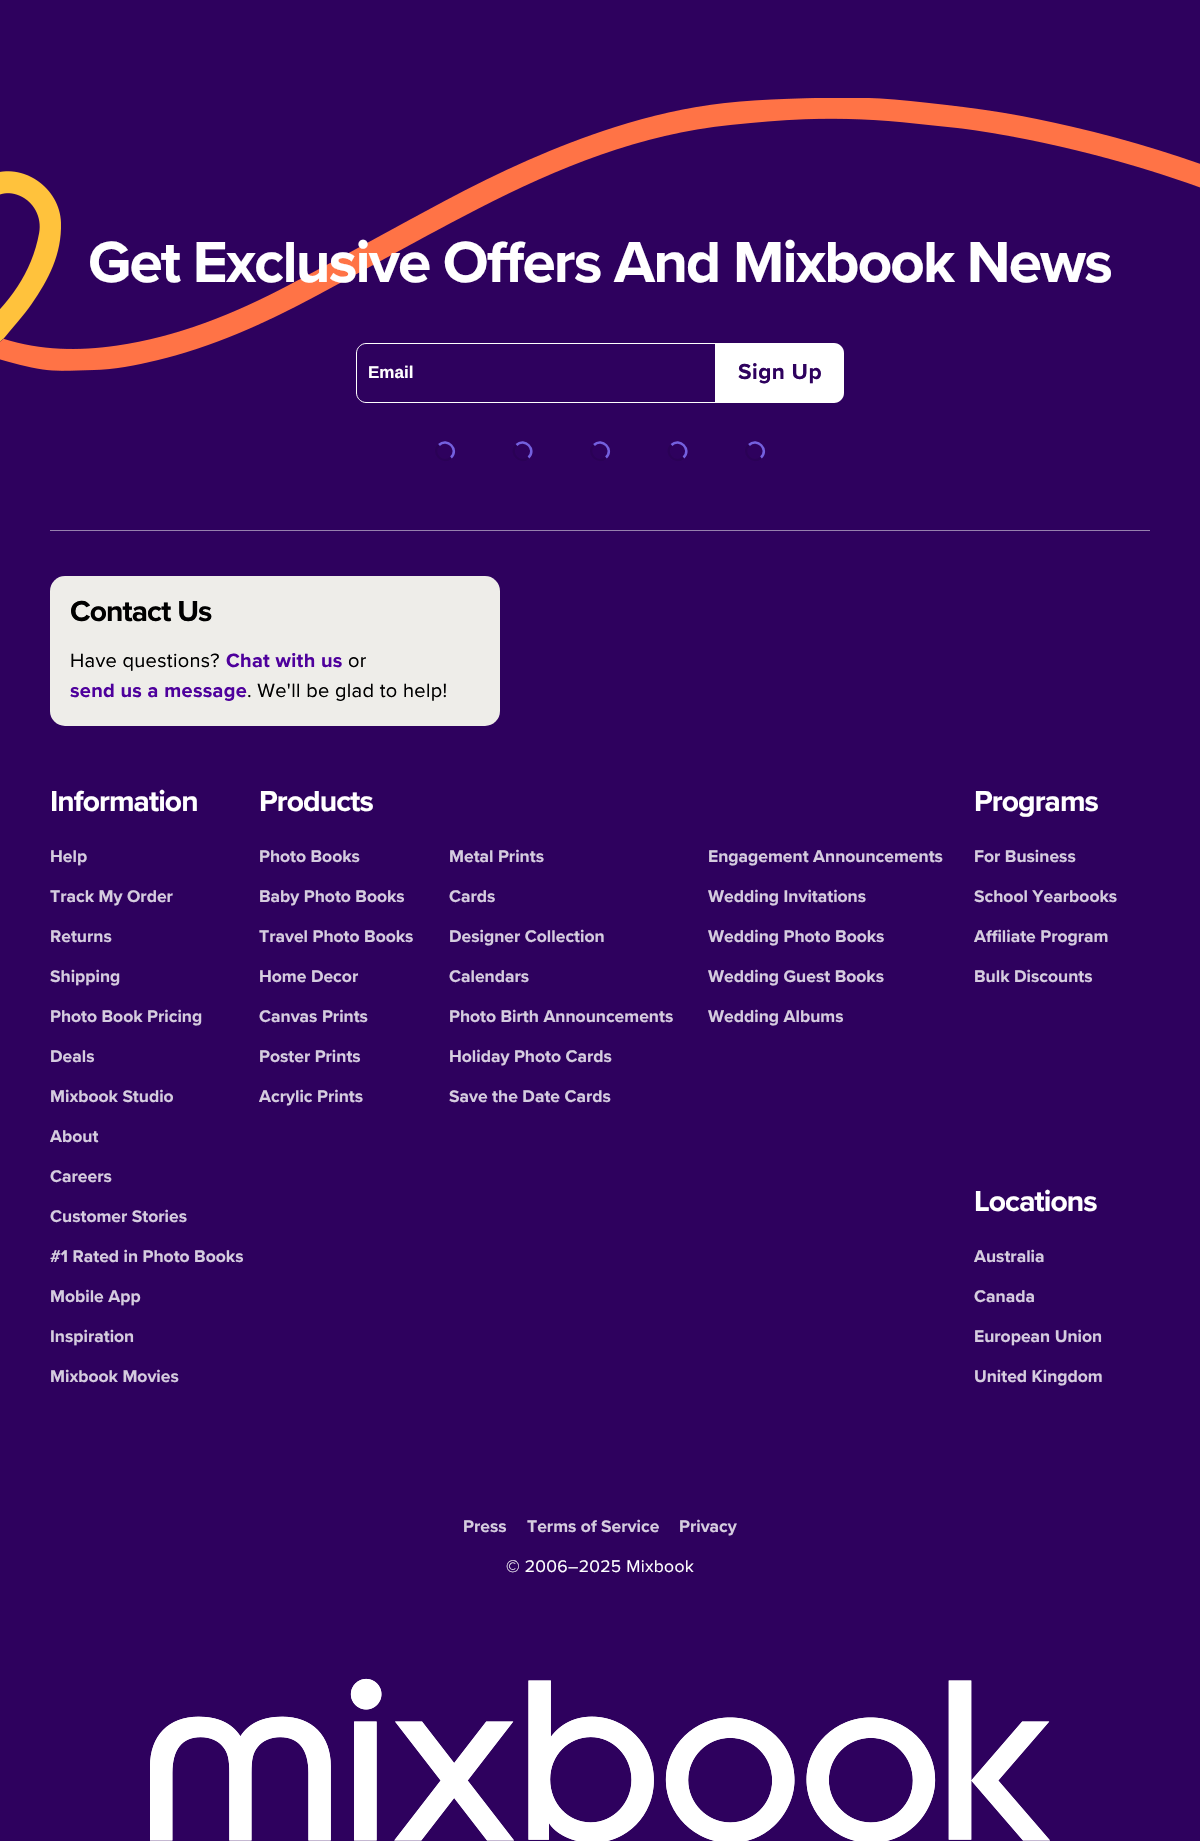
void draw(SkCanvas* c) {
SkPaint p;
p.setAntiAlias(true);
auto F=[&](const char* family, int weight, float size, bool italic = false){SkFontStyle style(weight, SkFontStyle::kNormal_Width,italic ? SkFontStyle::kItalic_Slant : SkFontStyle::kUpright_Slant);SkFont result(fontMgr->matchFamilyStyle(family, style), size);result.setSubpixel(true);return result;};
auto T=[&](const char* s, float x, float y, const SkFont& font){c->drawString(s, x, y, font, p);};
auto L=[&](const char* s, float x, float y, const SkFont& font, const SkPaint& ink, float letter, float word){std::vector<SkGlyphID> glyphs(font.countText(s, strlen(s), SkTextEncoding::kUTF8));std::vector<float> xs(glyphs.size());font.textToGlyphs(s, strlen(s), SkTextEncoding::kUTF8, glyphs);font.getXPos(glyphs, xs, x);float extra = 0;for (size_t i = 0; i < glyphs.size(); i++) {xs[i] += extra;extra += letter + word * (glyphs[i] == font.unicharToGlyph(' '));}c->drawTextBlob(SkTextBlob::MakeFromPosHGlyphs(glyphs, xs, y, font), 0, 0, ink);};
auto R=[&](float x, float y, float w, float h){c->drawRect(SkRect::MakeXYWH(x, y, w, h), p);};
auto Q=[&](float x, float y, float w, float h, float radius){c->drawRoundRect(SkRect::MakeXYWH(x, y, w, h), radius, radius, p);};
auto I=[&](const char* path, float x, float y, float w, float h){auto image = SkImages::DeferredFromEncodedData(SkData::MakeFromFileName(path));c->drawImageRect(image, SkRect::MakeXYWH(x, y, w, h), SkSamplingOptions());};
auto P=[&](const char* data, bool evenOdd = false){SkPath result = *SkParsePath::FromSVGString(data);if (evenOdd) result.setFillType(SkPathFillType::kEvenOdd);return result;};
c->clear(0xff2e015e);
I("1.png",0,98,1200,273);
p.setColor(0xff9680ae);
R(50,530,1100,1);
auto f1 = F("Proxima Nova",700,60);
p.setColor(0xffffffff);
L("Get Exclusive Offers And Mixbook News",88,282,f1,p,-1.8,0);
p.setStroke(true);
p.setStrokeWidth(1);
c->drawPath(P("M366 343.5h349.5v59h-349.5c-5 0-9.5-4.5-9.5-9.5v-40c0-5 4.5-9.5 9.5-9.5z"),p);
auto f2 = F("Liberation Sans",700,17);
p.setStroke(false);
T("Email",368,378,f2);
c->drawPath(P("M715 343h119c5.5 0 10 4.5 10 10v40c0 5.5-4.5 10-10 10h-119z"),p);
auto f3 = F("Proxima Nova",700,22.5);
p.setColor(0xff2e015e);
L("Sign Up",738,379,f3,p,.5,0);
p.setStroke(true);
p.setStrokeWidth(2.5);
p.setColor(0xff7460df);
c->drawPath(P("M439 445c8-8 20.5 4.5 12 12.5"),p);
p.setColor(0x1a090013);
c->drawPath(P("M451 457.5c-8 8-20.5-4.5-12-12.5"),p);
p.setColor(0xff7460df);
c->drawPath(P("M516.5 445c8-8 20.5 4.5 12 12.5"),p);
p.setColor(0x1a090013);
c->drawPath(P("M528.5 457.5c-8 8-20.5-4.5-12-12.5"),p);
p.setColor(0xff7460df);
c->drawPath(P("M594 445c8-8 20.5 4.5 12 12.5"),p);
p.setColor(0x1a090013);
c->drawPath(P("M606 457.5c-8 8-20.5-4.5-12-12.5"),p);
p.setColor(0xff7460df);
c->drawPath(P("M671.5 445c8-8 20.5 4.5 12 12.5"),p);
p.setColor(0x1a090013);
c->drawPath(P("M683.5 457.5c-8 8-20.5-4.5-12-12.5"),p);
p.setColor(0xff7460df);
c->drawPath(P("M749 445c8-8 20.5 4.5 12 12.5"),p);
p.setColor(0x1a090013);
c->drawPath(P("M761 457.5c-8 8-20.5-4.5-12-12.5"),p);
p.setStroke(false);
p.setColor(0xffeeede9);
Q(50,576,450,150,15);
auto f4 = F("Proxima Nova",700,30);
p.setColor(0xff000000);
L("Contact Us",70,621,f4,p,-.9,0);
auto f5 = F("Proxima Nova",400,20);
L("Have questions?",70,667,f5,p,.3,0);
auto f6 = F("Proxima Nova",700,20);
p.setColor(0xff4e009c);
L("Chat with us",226,667,f6,p,.3,0);
p.setColor(0xff000000);
L("or",348,667,f5,p,.3,0);
p.setColor(0xff4e009c);
L("send us a message",70,697,f6,p,.3,0);
p.setColor(0xff000000);
L(". We'll be glad to help!",247,697,f5,p,.3,0);
p.setColor(0xffffffff);
L("Information",50,811,f4,p,-.9,0);
auto f7 = F("Proxima Nova",700,17.5);
p.setColor(0xffd5ccdf);
T("Help",50,862,f7);
T("Track My Order",50,902,f7);
T("Returns",50,942,f7);
T("Shipping",50,982,f7);
T("Photo Book Pricing",50,1022,f7);
T("Deals",50,1062,f7);
T("Mixbook Studio",50,1102,f7);
T("About",50,1142,f7);
T("Careers",50,1182,f7);
T("Customer Stories",50,1222,f7);
T("#1 Rated in Photo Books",50,1262,f7);
T("Mobile App",50,1302,f7);
T("Inspiration",50,1342,f7);
T("Mixbook Movies",50,1382,f7);
p.setColor(0xffffffff);
L("Products",259,811,f4,p,-.9,0);
p.setColor(0xffd5ccdf);
T("Photo Books",259,862,f7);
T("Baby Photo Books",259,902,f7);
T("Travel Photo Books",259,942,f7);
T("Home Decor",259,982,f7);
T("Canvas Prints",259,1022,f7);
T("Poster Prints",259,1062,f7);
T("Acrylic Prints",259,1102,f7);
T("Metal Prints",449,862,f7);
T("Cards",449,902,f7);
T("Designer Collection",449,942,f7);
T("Calendars",449,982,f7);
T("Photo Birth Announcements",449,1022,f7);
T("Holiday Photo Cards",449,1062,f7);
T("Save the Date Cards",449,1102,f7);
T("Engagement Announcements",708,862,f7);
T("Wedding Invitations",708,902,f7);
T("Wedding Photo Books",708,942,f7);
T("Wedding Guest Books",708,982,f7);
T("Wedding Albums",708,1022,f7);
p.setColor(0xffffffff);
L("Programs",974,811,f4,p,-.9,0);
p.setColor(0xffd5ccdf);
T("For Business",974,862,f7);
T("School Yearbooks",974,902,f7);
T("Affiliate Program",974,942,f7);
T("Bulk Discounts",974,982,f7);
p.setColor(0xffffffff);
L("Locations",974,1211,f4,p,-.9,0);
p.setColor(0xffd5ccdf);
T("Australia",974,1262,f7);
T("Canada",974,1302,f7);
T("European Union",974,1342,f7);
T("United Kingdom",974,1382,f7);
T("Press",463,1532,f7);
T("Terms of Service",527,1532,f7);
T("Privacy",679,1532,f7);
auto f8 = F("Proxima Nova",400,17.5);
p.setColor(0xffffffff);
L("© 2006–2025 Mixbook",506,1572,f8,p,.3,0);
I("2.png",150,1678,900,163);
}
